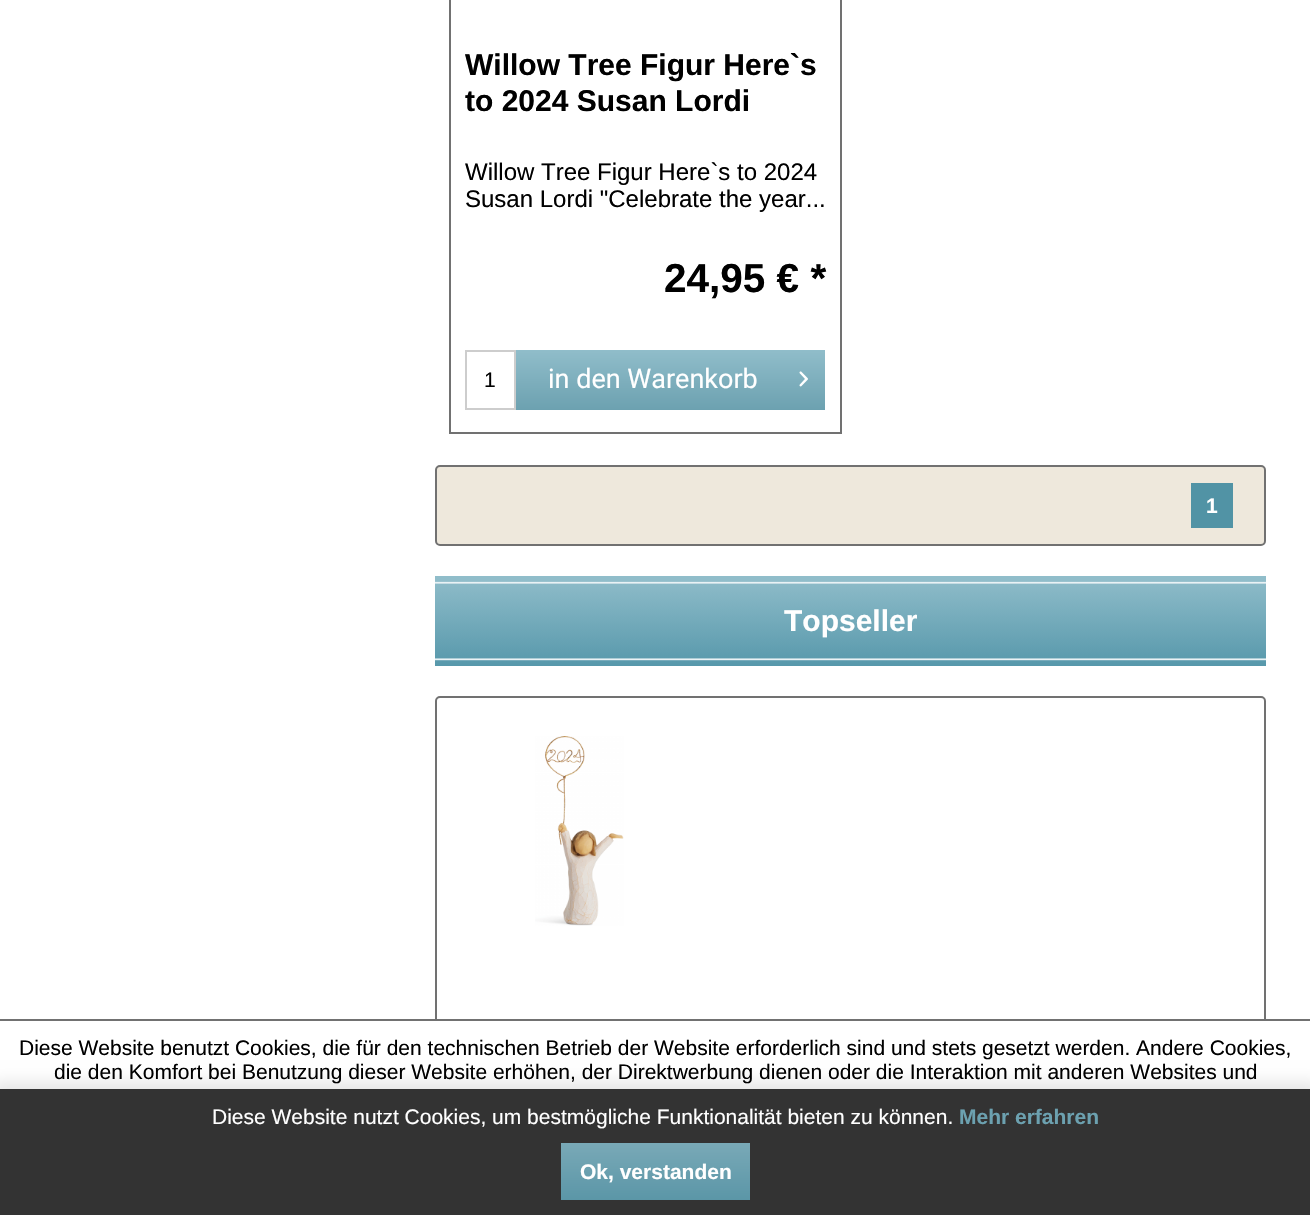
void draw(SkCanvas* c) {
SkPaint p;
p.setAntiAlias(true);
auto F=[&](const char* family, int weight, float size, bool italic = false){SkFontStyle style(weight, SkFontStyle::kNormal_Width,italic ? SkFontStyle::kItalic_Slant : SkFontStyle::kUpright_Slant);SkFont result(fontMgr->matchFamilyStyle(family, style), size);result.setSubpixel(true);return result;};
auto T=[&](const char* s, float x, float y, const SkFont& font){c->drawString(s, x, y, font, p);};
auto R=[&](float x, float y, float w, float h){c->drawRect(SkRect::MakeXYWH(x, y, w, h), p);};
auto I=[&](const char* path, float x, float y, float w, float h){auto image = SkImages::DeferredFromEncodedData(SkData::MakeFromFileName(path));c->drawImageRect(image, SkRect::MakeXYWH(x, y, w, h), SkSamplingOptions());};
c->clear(0xffffffff);
p.setStroke(true);
p.setStrokeWidth(2);
p.setColor(0xff717171);
c->drawRect(SkRect::MakeXYWH(450,-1,391,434),p);
auto f1 = F("Liberation Sans",700,30);
p.setStroke(false);
p.setColor(0xff000000);
T("Willow Tree Figur Here`s",465,75,f1);
T("to 2024 Susan Lordi",465,111,f1);
auto f2 = F("Liberation Sans",400,24);
T("Willow Tree Figur Here`s to 2024",465,180,f2);
T("Susan Lordi \"Celebrate the year...",465,207,f2);
auto f3 = F("Liberation Sans",700,40.5);
T("24,95 € *",664,292,f3);
p.setStroke(true);
p.setColor(0xffcdcdcd);
c->drawRect(SkRect::MakeXYWH(466,351,49,58),p);
auto f4 = F("Liberation Sans",400,21);
p.setStroke(false);
p.setColor(0xff000000);
T("1",484,387,f4);
{
const SkColor colors[] = {0xff90bdca,0xff6ca1b0};
const float stops[] = {0,1};
const SkPoint ends[] = {{671,350}, {671,410}};
p.setShader(SkGradientShader::MakeLinear(ends, colors, stops, 2, SkTileMode::kClamp));
p.setAlpha(255);
}
R(516,350,309,60);
auto f5 = F("Roboto",400,27);
p.setShader(nullptr);
p.setColor(0xffffffff);
T("in den Warenkorb",548,388,f5);
I("1.png",799,371,9,16);
p.setColor(0xffeee8dc);
c->drawRoundRect(SkRect::MakeXYWH(436,466,829,79),4,4,p);
p.setStroke(true);
p.setColor(0xff717171);
c->drawRoundRect(SkRect::MakeXYWH(436,466,829,79),4,4,p);
p.setStroke(false);
p.setColor(0xff5193a5);
R(1191,483,42,45);
auto f6 = F("Liberation Sans",700,21);
p.setColor(0xffffffff);
T("1",1206,513,f6);
p.setColor(0xff90bdca);
R(435,576,831,5);
I("2.png",435,581,831,85);
p.setColor(0xffffffff);
T("Topseller",784,631,f1);
p.setStroke(true);
p.setColor(0xff717171);
c->drawRoundRect(SkRect::MakeXYWH(436,697,829,477),4,4,p);
I("3.png",535,736,89,190);
p.setStroke(false);
p.setColor(0xffffffff);
R(435,1021,831,68);
p.setColor(0xff717171);
R(0,1019,1310,2);
p.setColor(0xff000000);
T("Diese Website benutzt Cookies, die für den technischen Betrieb der Website erforderlich sind und stets gesetzt werden. Andere Cookies,",19,1055,f4);
T("die den Komfort bei Benutzung dieser Website erhöhen, der Direktwerbung dienen oder die Interaktion mit anderen Websites und",54,1079,f4);
p.setColor(0x1a000000);
p.setMaskFilter(SkMaskFilter::MakeBlur(kNormal_SkBlurStyle, 7.5));
c->drawRect(SkRect::MakeXYWH(-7,1082,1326,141),p);
p.setMaskFilter(nullptr);
p.setColor(0xff333333);
R(0,1089,1310,126);
p.setColor(0xffffffff);
T("Diese Website nutzt Cookies, um bestmögliche Funktionalität bieten zu können.",212,1124,f4);
p.setColor(0xff6ca1b0);
T("Mehr erfahren",959,1124,f6);
{
const SkColor colors[] = {0xff79a9b7,0xff5b96a7};
const float stops[] = {0,1};
const SkPoint ends[] = {{656,1143}, {656,1200}};
p.setShader(SkGradientShader::MakeLinear(ends, colors, stops, 2, SkTileMode::kClamp));
p.setAlpha(255);
}
R(561,1143,189,57);
p.setShader(nullptr);
p.setColor(0xffffffff);
T("Ok, verstanden",580,1179,f6);
}
